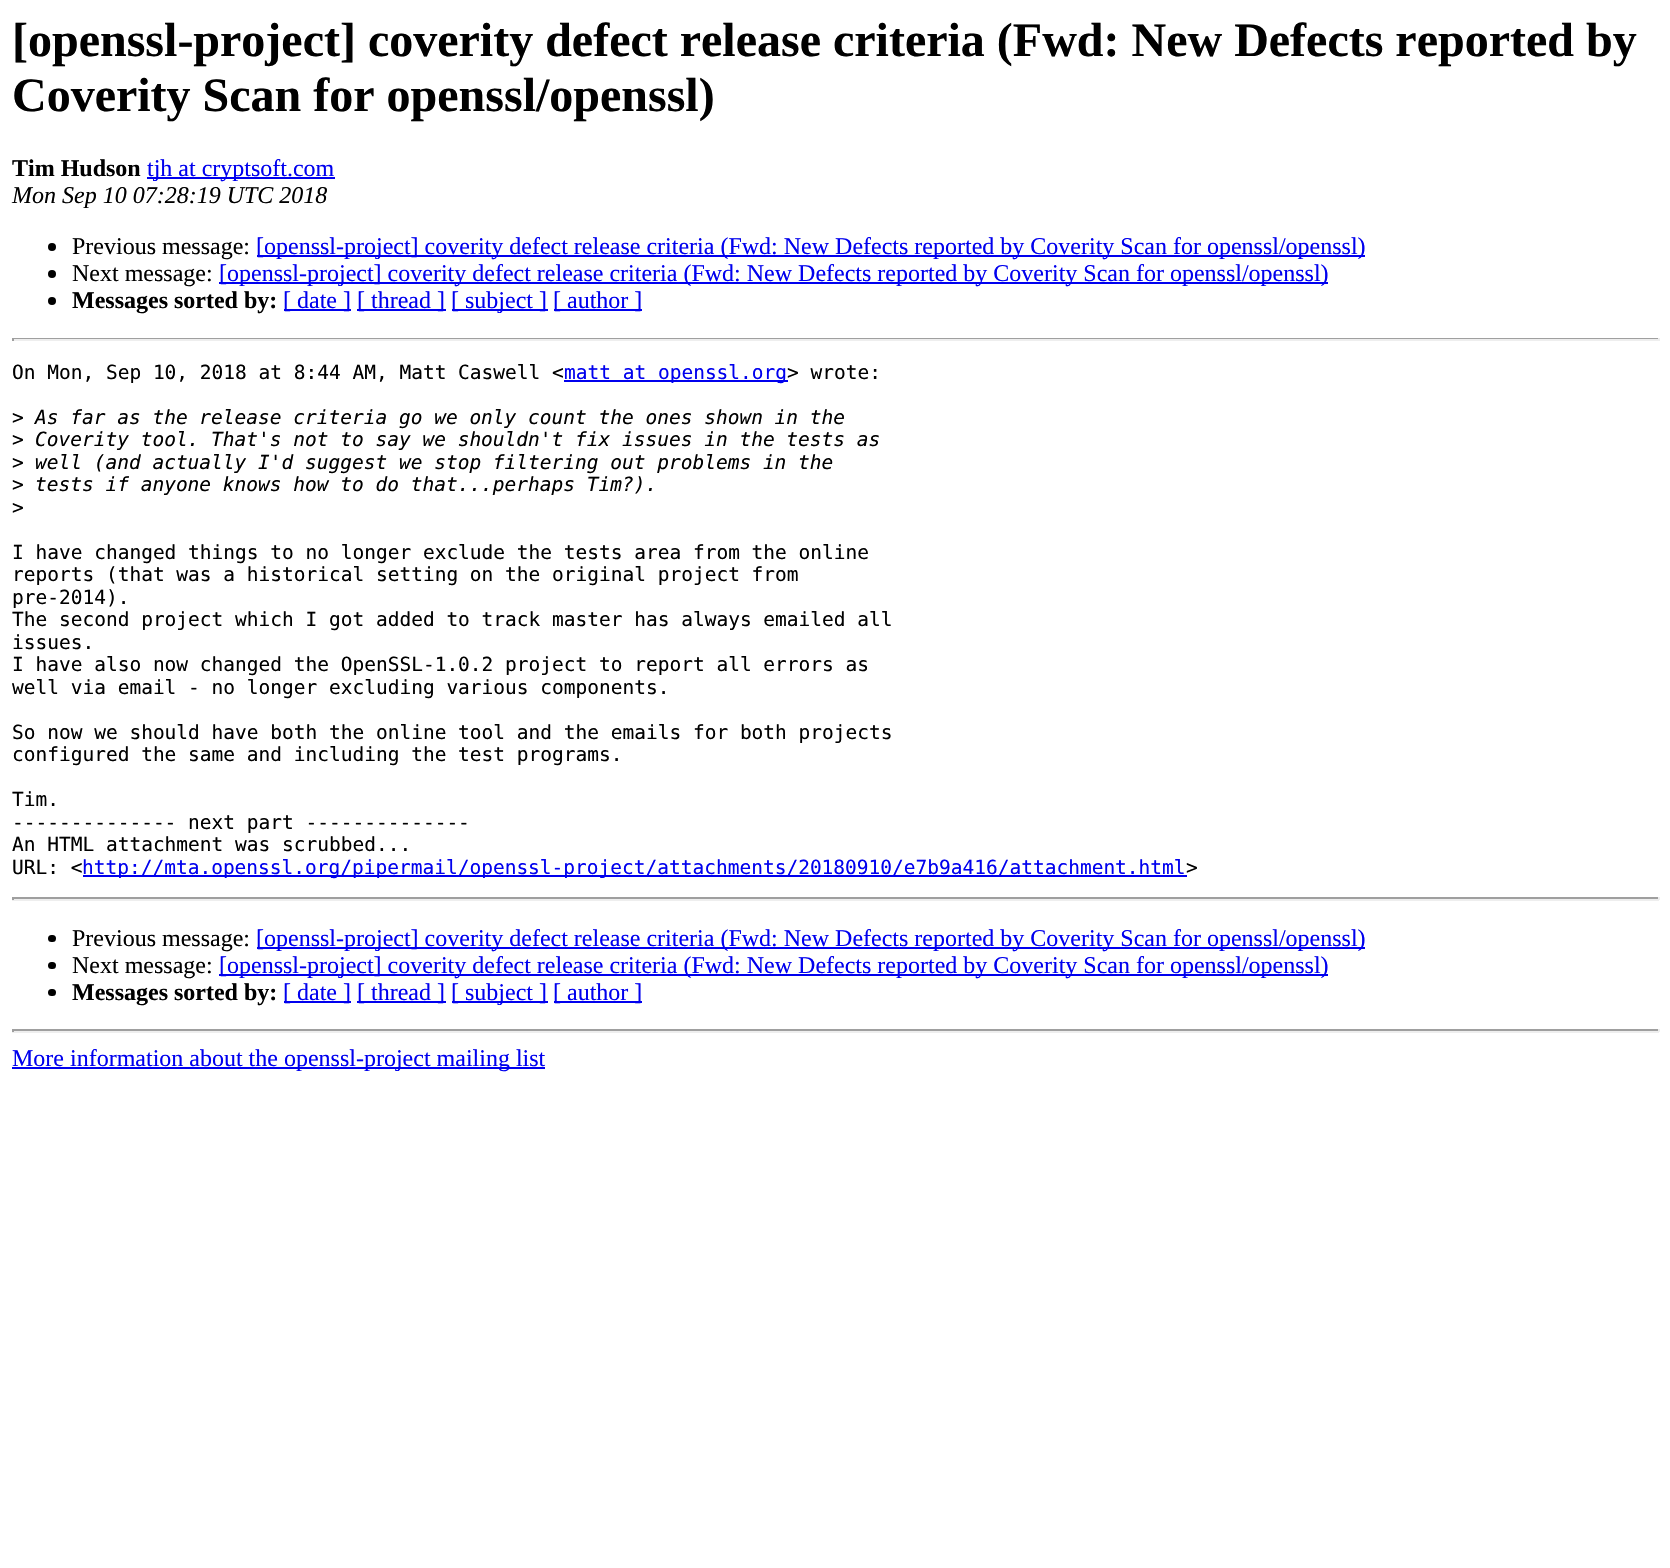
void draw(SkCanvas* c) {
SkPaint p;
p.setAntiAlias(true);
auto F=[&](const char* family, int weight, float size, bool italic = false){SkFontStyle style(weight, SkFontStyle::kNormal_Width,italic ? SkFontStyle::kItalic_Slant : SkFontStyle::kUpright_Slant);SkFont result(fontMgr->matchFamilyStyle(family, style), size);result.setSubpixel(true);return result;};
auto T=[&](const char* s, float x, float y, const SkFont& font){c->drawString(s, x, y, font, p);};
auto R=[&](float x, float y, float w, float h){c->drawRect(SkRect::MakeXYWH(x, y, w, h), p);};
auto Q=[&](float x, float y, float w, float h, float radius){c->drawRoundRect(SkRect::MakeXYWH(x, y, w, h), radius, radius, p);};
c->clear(0xffffffff);
auto f1 = F("Liberation Serif",700,48);
p.setColor(0xff000000);
T("[openssl-project] coverity defect release criteria (Fwd: New Defects reported by",12,56,f1);
T("Coverity Scan for openssl/openssl)",12,111,f1);
auto f2 = F("Liberation Serif",700,24);
T("Tim Hudson",12,176,f2);
p.setColor(0xff0000ee);
R(147,177,188,2);
auto f3 = F("Liberation Serif",400,24);
T("tjh at cryptsoft.com",147,176,f3);
auto f4 = F("Liberation Serif",400,24,true);
p.setColor(0xff000000);
T("Mon Sep 10 07:28:19 UTC 2018",12,203,f4);
c->drawCircle(52,247,4,p);
T("Previous message:",72,254,f3);
p.setColor(0xff0000ee);
R(257,255,1108,2);
T("[openssl-project] coverity defect release criteria (Fwd: New Defects reported by Coverity Scan for openssl/openssl)",256,254,f3);
p.setColor(0xff000000);
c->drawCircle(52,274,4,p);
T("Next message:",72,281,f3);
p.setColor(0xff0000ee);
R(219,282,1109,2);
T("[openssl-project] coverity defect release criteria (Fwd: New Defects reported by Coverity Scan for openssl/openssl)",219,281,f3);
p.setColor(0xff000000);
c->drawCircle(52,301,4,p);
T("Messages sorted by:",72,308,f2);
p.setColor(0xff0000ee);
R(284,309,67,2);
T("[ date ]",283,308,f3);
R(357,309,89,2);
T("[ thread ]",357,308,f3);
R(452,309,96,2);
T("[ subject ]",451,308,f3);
R(554,309,88,2);
T("[ author ]",553,308,f3);
p.setColor(0xff9f9f9f);
R(12,338,1647,1);
p.setColor(0xffeeeeee);
R(1658,338,2,3);
R(12,339,1647,2);
p.setColor(0xff9f9f9f);
R(12,338,2,3);
auto f5 = F("DejaVu Sans Mono",400,19.5);
p.setColor(0xff000000);
T("On Mon, Sep 10, 2018 at 8:44 AM, Matt Caswell <",12,379,f5);
p.setColor(0xff0000ee);
R(564,380,224,2);
T("matt at openssl.org",564,379,f5);
p.setColor(0xff000000);
T("> wrote:",787,379,f5);
T(">",12,424,f5);
auto f6 = F("DejaVu Sans Mono",400,19.5,true);
T("As far as the release criteria go we only count the ones shown in the",35,424,f6);
T(">",12,446,f5);
T("Coverity tool. That's not to say we shouldn't fix issues in the tests as",35,446,f6);
T(">",12,469,f5);
T("well (and actually I'd suggest we stop filtering out problems in the",35,469,f6);
T(">",12,491,f5);
T("tests if anyone knows how to do that...perhaps Tim?).",35,491,f6);
T(">",12,514,f5);
T("I have changed things to no longer exclude the tests area from the online",12,559,f5);
T("reports (that was a historical setting on the original project from",12,581,f5);
T("pre-2014).",12,604,f5);
T("The second project which I got added to track master has always emailed all",12,626,f5);
T("issues.",12,649,f5);
T("I have also now changed the OpenSSL-1.0.2 project to report all errors as",12,671,f5);
T("well via email - no longer excluding various components.",12,694,f5);
T("So now we should have both the online tool and the emails for both projects",12,739,f5);
T("configured the same and including the test programs.",12,761,f5);
T("Tim.",12,806,f5);
T("-------------- next part --------------",12,829,f5);
T("An HTML attachment was scrubbed...",12,851,f5);
T("URL: <",12,874,f5);
p.setColor(0xff0000ee);
R(83,875,1104,2);
T("http://mta.openssl.org/pipermail/openssl-project/attachments/20180910/e7b9a416/attachment.html",82,874,f5);
p.setColor(0xff000000);
T(">",1186,874,f5);
p.setColor(0xff9f9f9f);
R(12,897,1647,2);
p.setColor(0xffeeeeee);
R(1658,897,2,3);
R(12,899,1647,2);
p.setColor(0xff9f9f9f);
R(12,897,2,3);
p.setColor(0xff000000);
Q(48,935,8,7,3.5);
T("Previous message:",72,946,f3);
p.setColor(0xff0000ee);
R(257,947,1108,2);
T("[openssl-project] coverity defect release criteria (Fwd: New Defects reported by Coverity Scan for openssl/openssl)",256,946,f3);
p.setColor(0xff000000);
Q(48,962,8,7,3.5);
T("Next message:",72,973,f3);
p.setColor(0xff0000ee);
R(219,974,1109,2);
T("[openssl-project] coverity defect release criteria (Fwd: New Defects reported by Coverity Scan for openssl/openssl)",219,973,f3);
p.setColor(0xff000000);
Q(48,989,8,7,3.5);
T("Messages sorted by:",72,1000,f2);
p.setColor(0xff0000ee);
R(284,1001,67,2);
T("[ date ]",283,1000,f3);
R(357,1001,89,2);
T("[ thread ]",357,1000,f3);
R(452,1001,96,2);
T("[ subject ]",451,1000,f3);
R(554,1001,88,2);
T("[ author ]",553,1000,f3);
p.setColor(0xff9f9f9f);
R(12,1029,1647,2);
p.setColor(0xffeeeeee);
R(1658,1029,2,3);
R(12,1031,1647,2);
p.setColor(0xff9f9f9f);
R(12,1029,2,3);
p.setColor(0xff0000ee);
R(12,1067,533,2);
T("More information about the openssl-project mailing list",12,1066,f3);
}
